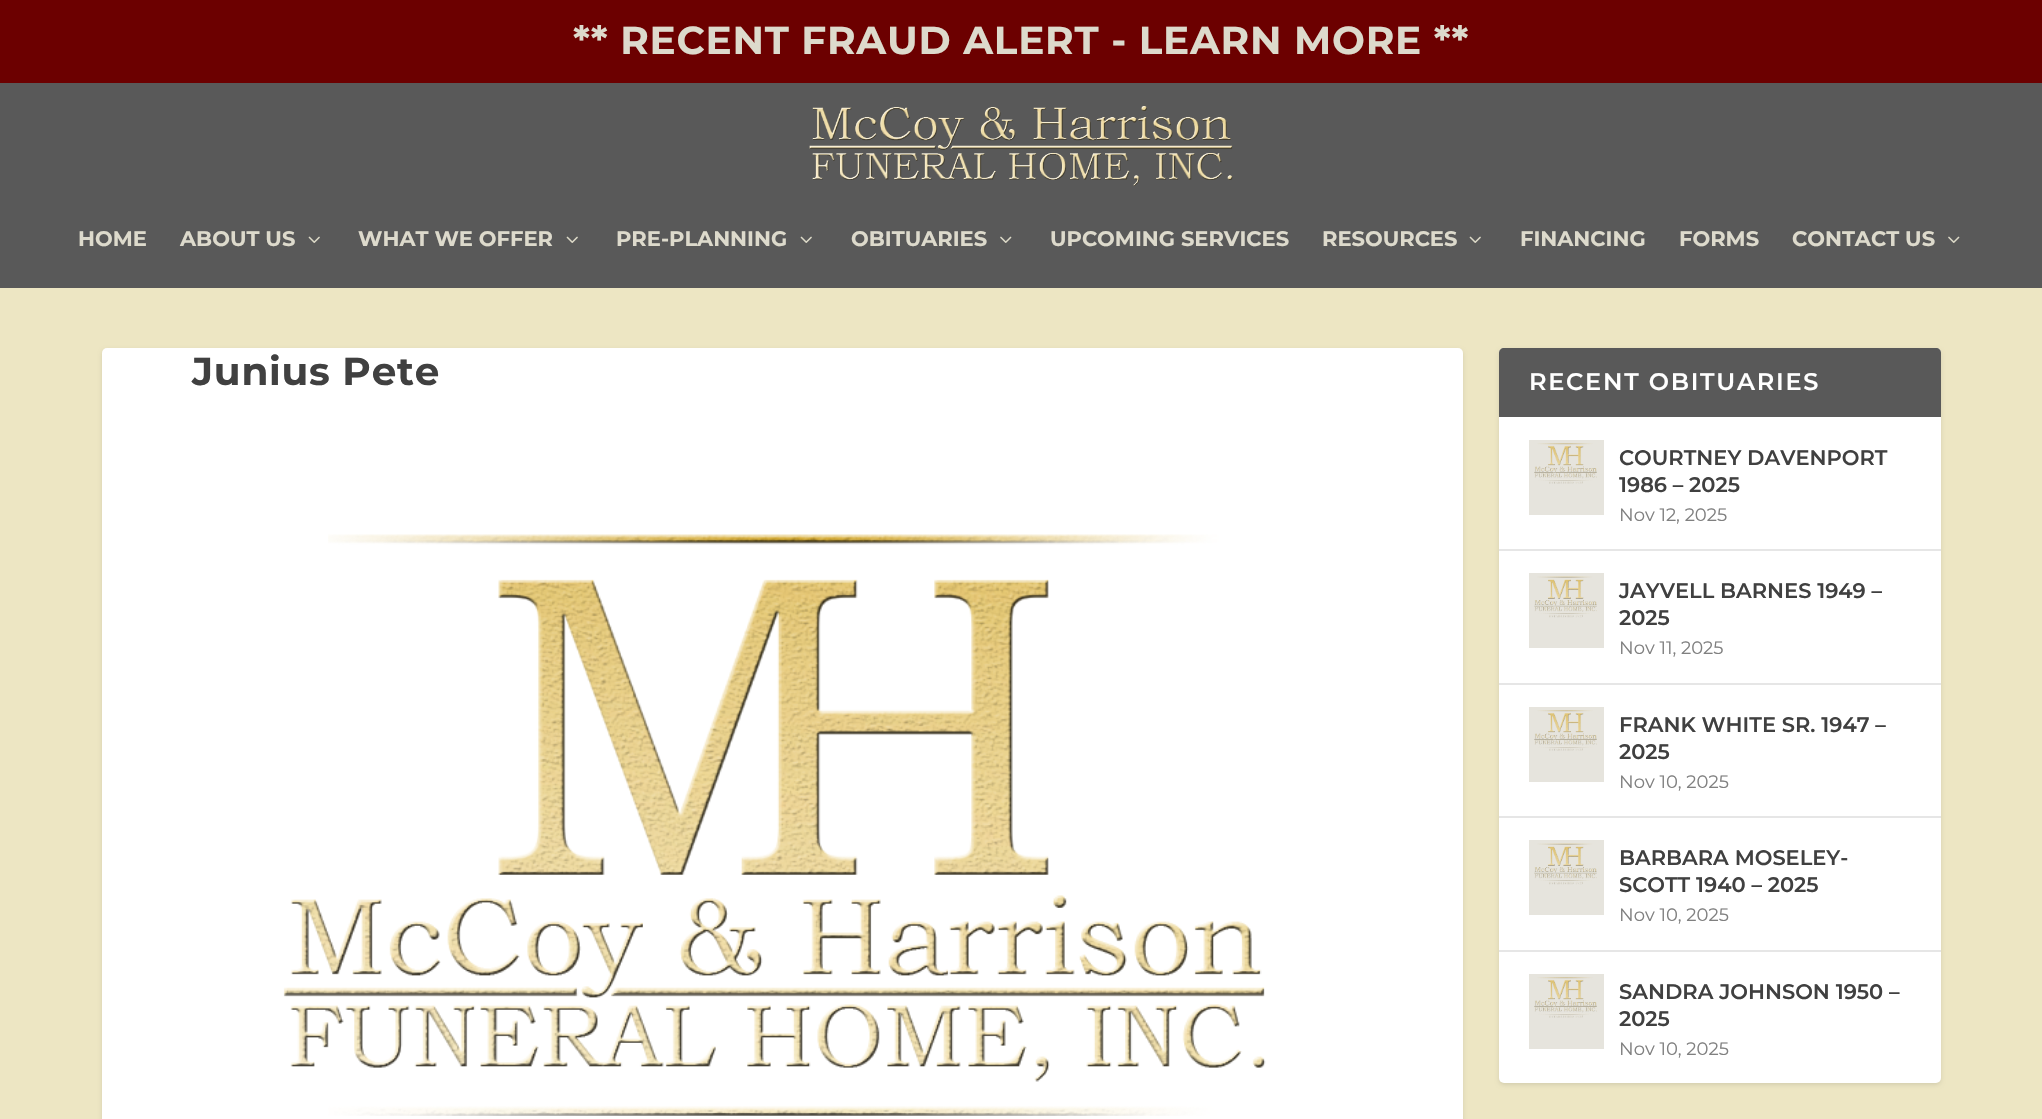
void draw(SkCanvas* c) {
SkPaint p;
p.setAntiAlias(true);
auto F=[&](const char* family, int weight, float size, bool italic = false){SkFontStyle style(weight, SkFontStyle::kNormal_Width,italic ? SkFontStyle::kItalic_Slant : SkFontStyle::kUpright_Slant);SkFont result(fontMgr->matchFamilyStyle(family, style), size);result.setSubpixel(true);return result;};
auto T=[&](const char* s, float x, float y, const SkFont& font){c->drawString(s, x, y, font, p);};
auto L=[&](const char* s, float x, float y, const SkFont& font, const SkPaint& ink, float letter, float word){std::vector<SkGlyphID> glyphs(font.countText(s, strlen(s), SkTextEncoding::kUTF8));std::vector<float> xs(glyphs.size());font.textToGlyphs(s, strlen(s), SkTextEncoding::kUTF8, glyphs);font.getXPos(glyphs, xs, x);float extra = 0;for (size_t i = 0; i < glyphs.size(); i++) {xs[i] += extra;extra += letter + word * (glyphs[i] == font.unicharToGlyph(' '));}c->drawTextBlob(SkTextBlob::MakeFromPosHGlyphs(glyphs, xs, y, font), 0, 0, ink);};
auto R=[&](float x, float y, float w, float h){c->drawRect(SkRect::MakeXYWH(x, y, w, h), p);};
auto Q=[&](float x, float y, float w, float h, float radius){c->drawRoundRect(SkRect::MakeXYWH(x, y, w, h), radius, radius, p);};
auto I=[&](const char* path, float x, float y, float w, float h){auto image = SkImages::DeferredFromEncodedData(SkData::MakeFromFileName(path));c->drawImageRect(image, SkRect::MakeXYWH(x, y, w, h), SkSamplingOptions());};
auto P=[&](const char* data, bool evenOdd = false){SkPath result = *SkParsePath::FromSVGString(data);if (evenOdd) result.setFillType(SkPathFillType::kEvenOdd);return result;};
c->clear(0xffede6c3);
p.setColor(0xff595959);
R(0,83,2042,205);
p.setColor(0xff6c0000);
R(0,0,2042,83);
auto f1 = F("Montserrat",700,39);
p.setColor(0xffdddacc);
L("** RECENT FRAUD ALERT - LEARN MORE **",573,54,f1,p,.75,0);
I("1.png",809,106,424,80);
auto f2 = F("Montserrat",700,21);
T("HOME",78,246,f2);
T("ABOUT US",180,246,f2);
I("2.png",308,236,12,7);
T("WHAT WE OFFER",358,246,f2);
I("2.png",566,236,12,7);
T("PRE-PLANNING",616,246,f2);
I("2.png",800,236,12,7);
T("OBITUARIES",851,246,f2);
I("3.png",1000,236,12,7);
T("UPCOMING SERVICES",1050,246,f2);
T("RESOURCES",1322,246,f2);
I("2.png",1469,236,12,7);
T("FINANCING",1520,246,f2);
T("FORMS",1679,246,f2);
T("CONTACT US",1792,246,f2);
I("3.png",1948,236,12,7);
p.setColor(0x1a000000);
p.setMaskFilter(SkMaskFilter::MakeBlur(kNormal_SkBlurStyle, 2));
c->drawRoundRect(SkRect::MakeXYWH(102,350,1361,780),5,5,p);
p.setMaskFilter(nullptr);
p.setColor(0xffffffff);
Q(102,348,1361,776,5);
p.setColor(0xff404040);
L("Junius Pete",192,385,f1,p,.75,0);
I("4.png",283,534,983,582);
p.setColor(0x1a000000);
p.setMaskFilter(SkMaskFilter::MakeBlur(kNormal_SkBlurStyle, 2));
c->drawRoundRect(SkRect::MakeXYWH(1499,350,442,735),5,5,p);
p.setMaskFilter(nullptr);
p.setColor(0xffffffff);
Q(1499,348,442,735,5);
p.setColor(0xff595959);
c->drawPath(P("M1504 348h432c3 0 5 2 5 5v64h-442v-64c0-3 2-5 5-5z"),p);
auto f3 = F("Montserrat",600,24);
p.setColor(0xffffffff);
L("RECENT OBITUARIES",1529,390,f3,p,1.75,0);
p.setColor(0xffe6e6e6);
R(1499,549,442,2);
p.setColor(0xffe6e4dd);
R(1529,440,75,75);
I("5.png",1534,443,63,41);
auto f4 = F("Montserrat",600,21);
p.setColor(0xff404040);
T("COURTNEY DAVENPORT",1619,465,f4);
T("1986 – 2025",1619,492,f4);
auto f5 = F("Montserrat",400,18);
p.setColor(0xff808080);
T("Nov 12, 2025",1619,521,f5);
p.setColor(0xffe6e6e6);
R(1499,683,442,2);
p.setColor(0xffe6e4dd);
R(1529,573,75,75);
I("6.png",1534,576,63,42);
p.setColor(0xff404040);
T("JAYVELL BARNES 1949 –",1619,598,f4);
T("2025",1619,625,f4);
p.setColor(0xff808080);
T("Nov 11, 2025",1619,654,f5);
p.setColor(0xffe6e6e6);
R(1499,816,442,2);
p.setColor(0xffe6e4dd);
R(1529,707,75,75);
I("5.png",1534,710,63,41);
p.setColor(0xff404040);
T("FRANK WHITE SR. 1947 –",1619,732,f4);
T("2025",1619,759,f4);
p.setColor(0xff808080);
T("Nov 10, 2025",1619,788,f5);
p.setColor(0xffe6e6e6);
R(1499,950,442,2);
p.setColor(0xffe6e4dd);
R(1529,840,75,75);
I("6.png",1534,843,63,42);
p.setColor(0xff404040);
T("BARBARA MOSELEY-",1619,865,f4);
T("SCOTT 1940 – 2025",1619,892,f4);
p.setColor(0xff808080);
T("Nov 10, 2025",1619,921,f5);
p.setColor(0xffe6e4dd);
R(1529,974,75,75);
I("5.png",1534,977,63,41);
p.setColor(0xff404040);
T("SANDRA JOHNSON 1950 –",1619,999,f4);
T("2025",1619,1026,f4);
p.setColor(0xff808080);
T("Nov 10, 2025",1619,1055,f5);
}
